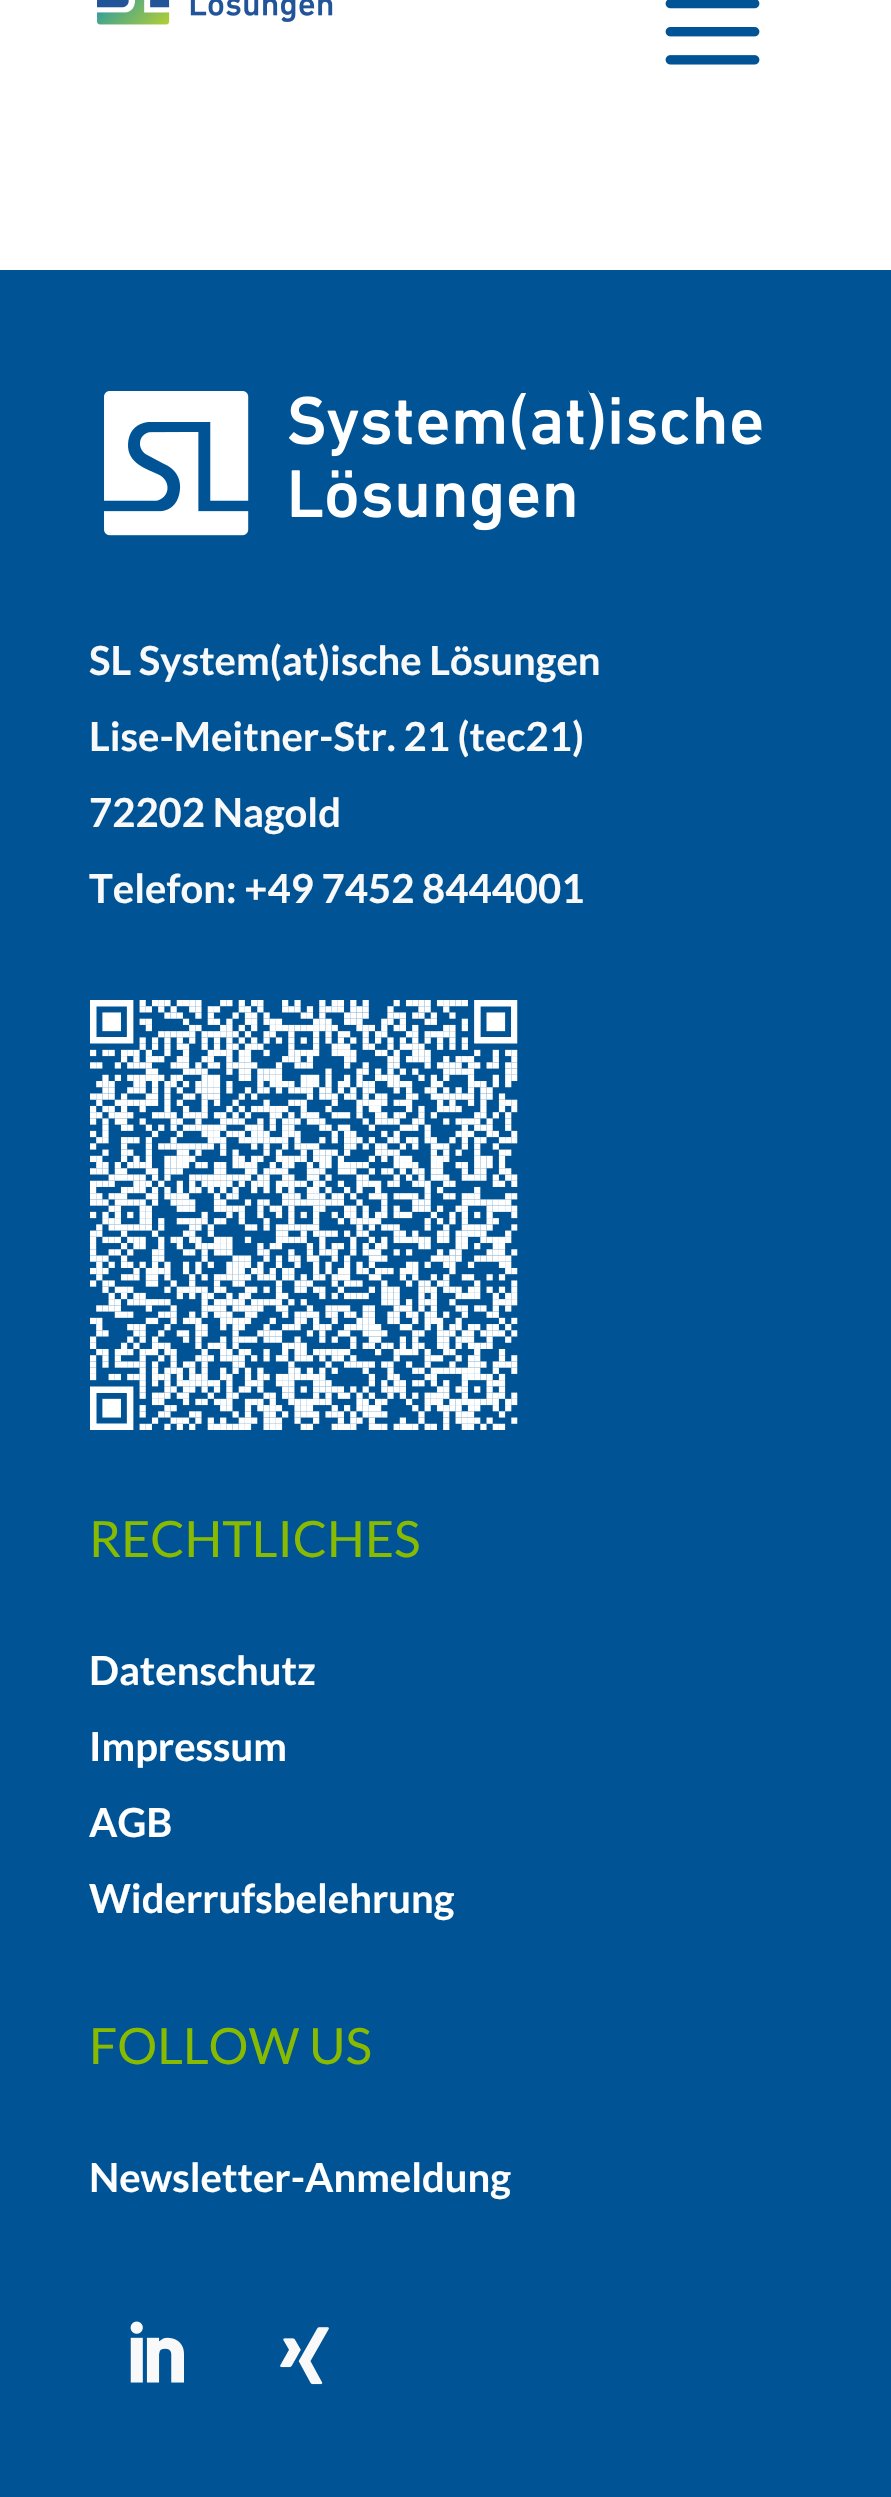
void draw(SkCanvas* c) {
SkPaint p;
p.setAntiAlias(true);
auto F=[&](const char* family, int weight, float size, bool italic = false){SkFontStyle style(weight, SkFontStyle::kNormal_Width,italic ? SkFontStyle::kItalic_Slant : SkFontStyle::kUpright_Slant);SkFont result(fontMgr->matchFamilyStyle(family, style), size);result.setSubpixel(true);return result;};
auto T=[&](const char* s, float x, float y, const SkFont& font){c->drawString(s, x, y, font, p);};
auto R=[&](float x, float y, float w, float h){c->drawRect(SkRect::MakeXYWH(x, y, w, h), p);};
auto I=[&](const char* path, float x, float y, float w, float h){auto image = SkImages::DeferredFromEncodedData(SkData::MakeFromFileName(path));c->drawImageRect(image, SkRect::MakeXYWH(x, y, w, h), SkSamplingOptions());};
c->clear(0xffffffff);
I("1.png",97,0,236,25);
I("2.png",665,0,95,65);
p.setColor(0xff005394);
R(0,270,891,2227);
I("3.png",104,390,658,146);
auto f1 = F("Lato",700,40);
p.setColor(0xfff9f9f9);
T("SL System(at)ische Lösungen",89,675,f1);
T("Lise-Meitner-Str. 21 (tec21)",89,751,f1);
T("72202 Nagold",89,827,f1);
T("Telefon: +49 7452 8444001",89,903,f1);
I("4.png",90,1000,428,430);
auto f2 = F("Lato",400,50);
p.setColor(0xff88bb00);
T("RECHTLICHES",89,1557,f2);
p.setColor(0xffffffff);
T("Datenschutz",89,1685,f1);
T("Impressum",89,1761,f1);
T("AGB",89,1837,f1);
T("Widerrufsbelehrung",89,1913,f1);
p.setColor(0xff88bb00);
T("FOLLOW US",89,2064,f2);
p.setColor(0xffffffff);
T("Newsletter-Anmeldung",89,2192,f1);
I("5.png",130,2321,54,62);
I("6.png",280,2327,49,58);
}
